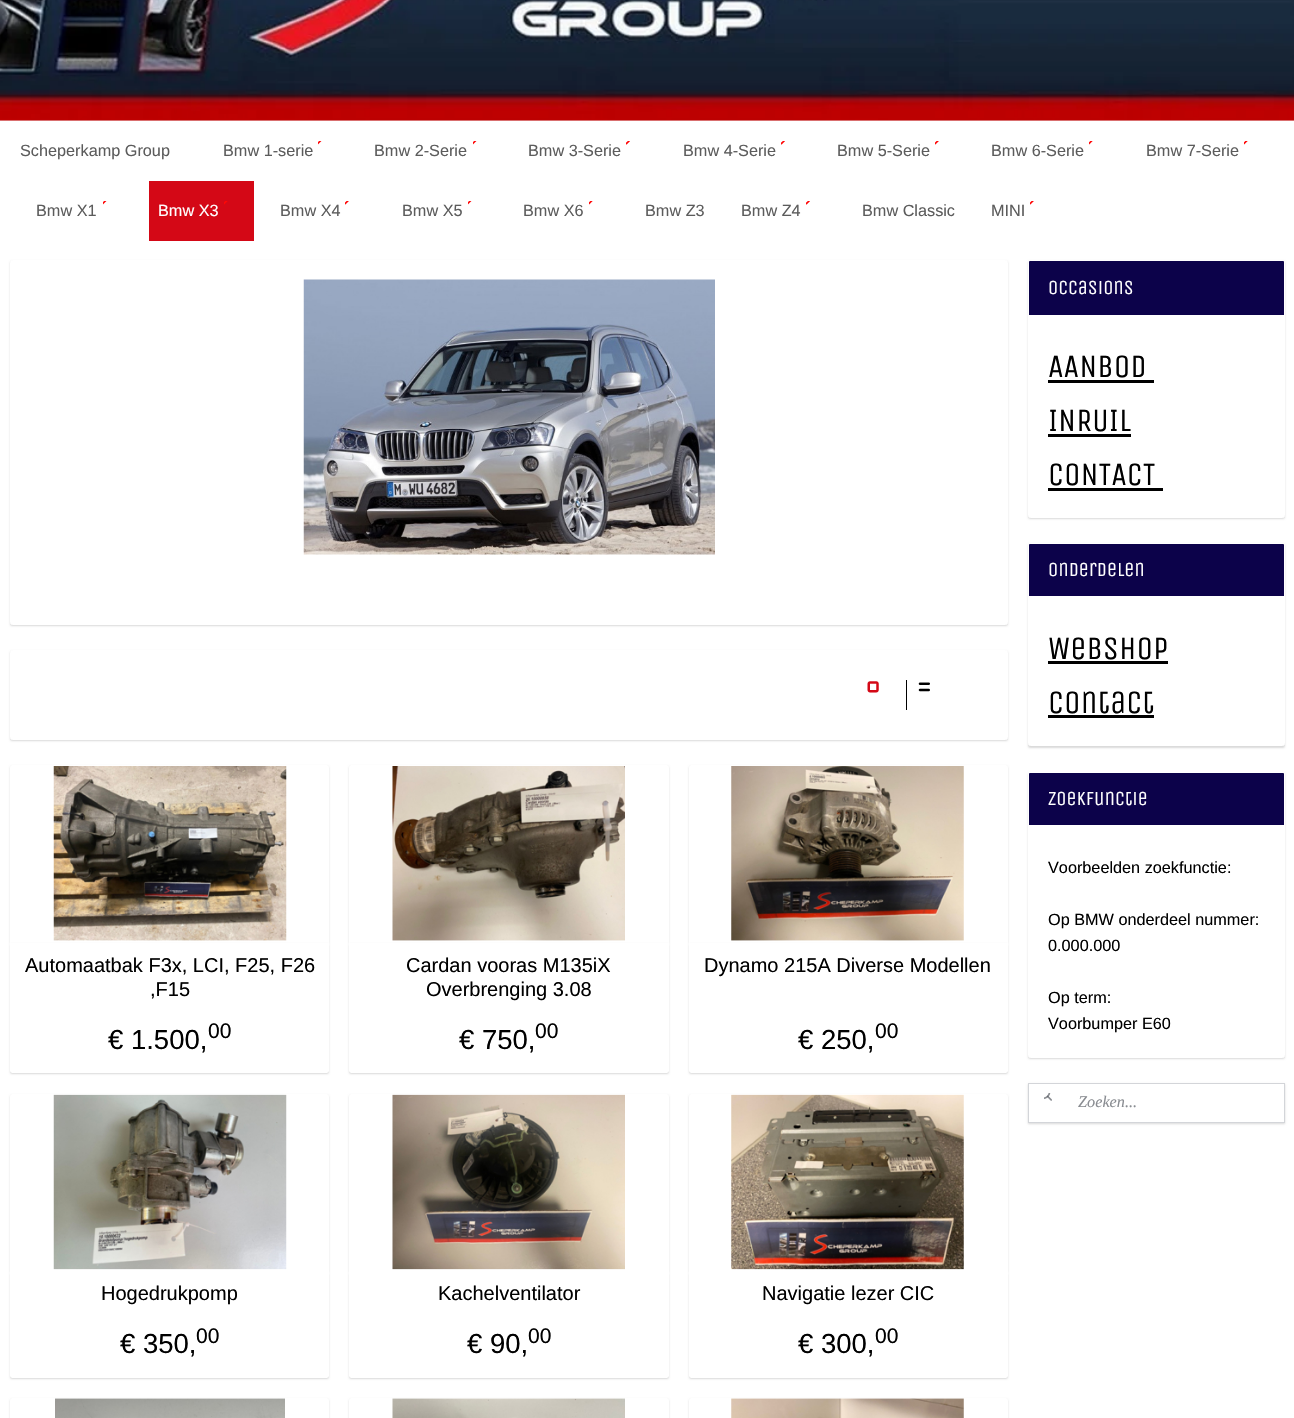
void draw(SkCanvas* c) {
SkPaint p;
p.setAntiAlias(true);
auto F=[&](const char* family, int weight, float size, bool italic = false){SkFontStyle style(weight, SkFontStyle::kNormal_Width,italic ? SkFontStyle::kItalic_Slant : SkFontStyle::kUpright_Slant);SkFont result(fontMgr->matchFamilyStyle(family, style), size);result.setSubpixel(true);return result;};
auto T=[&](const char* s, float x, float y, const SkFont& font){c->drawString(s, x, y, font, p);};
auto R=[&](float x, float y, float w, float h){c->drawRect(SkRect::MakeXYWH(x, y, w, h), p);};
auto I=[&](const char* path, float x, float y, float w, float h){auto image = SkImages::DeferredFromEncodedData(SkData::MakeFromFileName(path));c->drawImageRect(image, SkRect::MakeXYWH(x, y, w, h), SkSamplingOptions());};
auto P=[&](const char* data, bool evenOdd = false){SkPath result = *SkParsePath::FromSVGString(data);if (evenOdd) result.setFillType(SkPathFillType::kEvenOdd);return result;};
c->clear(0xffffffff);
I("1.png",0,0,1294,121);
auto f1 = F("Liberation Sans",400,16.25);
p.setColor(0xff5c5c5c);
T("Scheperkamp Group",20,156,f1);
I("2.png",318,141,4,4);
T("Bmw 1-serie",223,156,f1);
I("2.png",473,141,4,4);
T("Bmw 2-Serie",374,156,f1);
I("3.png",626,141,4,4);
T("Bmw 3-Serie",528,156,f1);
I("3.png",781,141,4,4);
T("Bmw 4-Serie",683,156,f1);
I("4.png",935,141,4,4);
T("Bmw 5-Serie",837,156,f1);
I("5.png",1089,141,4,4);
T("Bmw 6-Serie",991,156,f1);
I("5.png",1244,141,4,4);
T("Bmw 7-Serie",1146,156,f1);
I("2.png",103,201,4,4);
T("Bmw X1",36,216,f1);
p.setColor(0xffd40816);
R(149,181,105,60);
I("6.png",224,201,4,4);
p.setColor(0xffffffff);
T("Bmw X3",158,216,f1);
I("4.png",345,201,4,4);
p.setColor(0xff5c5c5c);
T("Bmw X4",280,216,f1);
I("2.png",468,201,4,4);
T("Bmw X5",402,216,f1);
I("5.png",589,201,4,4);
T("Bmw X6",523,216,f1);
T("Bmw Z3",645,216,f1);
I("3.png",806,201,4,4);
T("Bmw Z4",741,216,f1);
T("Bmw Classic",862,216,f1);
I("4.png",1030,201,4,4);
T("MINI",991,216,f1);
p.setColor(0x26000000);
p.setMaskFilter(SkMaskFilter::MakeBlur(kNormal_SkBlurStyle, 1));
c->drawRoundRect(SkRect::MakeXYWH(1028,261,257,258),2.5,2.5,p);
p.setMaskFilter(nullptr);
p.setColor(0xffffffff);
c->drawRoundRect(SkRect::MakeXYWH(1028.5,260.5,256,257),2,2,p);
p.setStroke(true);
p.setStrokeWidth(1);
c->drawRoundRect(SkRect::MakeXYWH(1028.5,260.5,256,257),2,2,p);
p.setStroke(false);
p.setColor(0xff0c024a);
c->drawPath(P("M1030 261h253c.5 0 1 .5 1 1v53h-255v-53c0-.5 .5-1 1-1z"),p);
auto f2 = F("Unica One",400,20);
p.setColor(0xffffffff);
T("Occasions",1048,294,f2);
auto f3 = F("Unica One",400,32.5);
p.setColor(0xff000000);
T("AANBOD",1048,377,f3);
R(1048,380,106,3);
T("INRUIL",1048,431,f3);
R(1048,434,83,3);
T("CONTACT",1048,485,f3);
R(1048,488,115,3);
p.setColor(0x26000000);
p.setMaskFilter(SkMaskFilter::MakeBlur(kNormal_SkBlurStyle, 1));
c->drawRoundRect(SkRect::MakeXYWH(1028,544,257,204),2.5,2.5,p);
p.setMaskFilter(nullptr);
p.setColor(0xffffffff);
c->drawRoundRect(SkRect::MakeXYWH(1028.5,543.5,256,202),2,2,p);
p.setStroke(true);
c->drawRoundRect(SkRect::MakeXYWH(1028.5,543.5,256,202),2,2,p);
p.setStroke(false);
p.setColor(0xff0c024a);
c->drawPath(P("M1030 544h253c.5 0 1 .5 1 1v51h-255v-51c0-.5 .5-1 1-1z"),p);
p.setColor(0xffffffff);
T("Onderdelen",1048,576,f2);
p.setColor(0xff000000);
T("Webshop",1048,659,f3);
R(1048,661,120,3);
T("Contact",1048,713,f3);
R(1048,715,106,3);
p.setColor(0x26000000);
p.setMaskFilter(SkMaskFilter::MakeBlur(kNormal_SkBlurStyle, 1));
c->drawRoundRect(SkRect::MakeXYWH(1028,773,257,286),2.5,2.5,p);
p.setMaskFilter(nullptr);
p.setColor(0xffffffff);
c->drawRoundRect(SkRect::MakeXYWH(1028.5,771.5,256,286),2,2,p);
p.setStroke(true);
c->drawRoundRect(SkRect::MakeXYWH(1028.5,771.5,256,286),2,2,p);
p.setStroke(false);
p.setColor(0xff0c024a);
c->drawPath(P("M1030 773h253c.5 0 1 .5 1 1v51h-255v-51c0-.5 .5-1 1-1z"),p);
p.setColor(0xffffffff);
T("Zoekfunctie",1048,805,f2);
p.setColor(0xff000000);
T("Voorbeelden zoekfunctie:",1048,873,f1);
T("Op BMW onderdeel nummer:",1048,925,f1);
T("0.000.000",1048,951,f1);
T("Op term:",1048,1003,f1);
T("Voorbumper E60",1048,1029,f1);
p.setColor(0x26000000);
p.setMaskFilter(SkMaskFilter::MakeBlur(kNormal_SkBlurStyle, 1));
c->drawRect(SkRect::MakeXYWH(1028,1084,257,40),p);
p.setMaskFilter(nullptr);
p.setColor(0xffffffff);
c->drawRect(SkRect::MakeXYWH(1028.5,1083.5,256,39),p);
p.setStroke(true);
p.setColor(0xffd3d5d9);
c->drawRect(SkRect::MakeXYWH(1028.5,1083.5,256,39),p);
I("7.png",1044,1093,8,8);
auto f4 = F("Liberation Serif",400,16.25,true);
p.setStroke(false);
p.setColor(0xff898c91);
T("Zoeken...",1078,1107,f4);
p.setColor(0x26000000);
p.setMaskFilter(SkMaskFilter::MakeBlur(kNormal_SkBlurStyle, 1));
c->drawRoundRect(SkRect::MakeXYWH(10,261,998,365),2.5,2.5,p);
p.setMaskFilter(nullptr);
p.setColor(0xffffffff);
c->drawRoundRect(SkRect::MakeXYWH(10.5,260.5,997,364),2,2,p);
p.setStroke(true);
c->drawRoundRect(SkRect::MakeXYWH(10.5,260.5,997,364),2,2,p);
I("8.png",303,279,412,276);
p.setStroke(false);
p.setColor(0x26000000);
p.setMaskFilter(SkMaskFilter::MakeBlur(kNormal_SkBlurStyle, 1));
c->drawRoundRect(SkRect::MakeXYWH(10,651,998,90),2.5,2.5,p);
p.setMaskFilter(nullptr);
p.setColor(0xffffffff);
c->drawRoundRect(SkRect::MakeXYWH(10.5,650.5,997,89),2,2,p);
p.setStroke(true);
c->drawRoundRect(SkRect::MakeXYWH(10.5,650.5,997,89),2,2,p);
I("9.png",867,681,12,12);
p.setStroke(false);
p.setColor(0xff000000);
R(906,680,1,30);
I("10.png",918,682,12,10);
p.setColor(0x26000000);
p.setMaskFilter(SkMaskFilter::MakeBlur(kNormal_SkBlurStyle, 1));
c->drawRoundRect(SkRect::MakeXYWH(10,766,319,178),2.5,2.5,p);
p.setMaskFilter(nullptr);
p.setColor(0xffffffff);
c->drawPath(P("M12.5 765h314c1.5 0 2.5 1 2.5 2.5v175.5h-319v-175.5c0-1.5 1-2.5 2.5-2.5z"),p);
I("11.png",53,766,234,175);
p.setColor(0x26000000);
p.setMaskFilter(SkMaskFilter::MakeBlur(kNormal_SkBlurStyle, 1));
c->drawRoundRect(SkRect::MakeXYWH(10,944,319,130),2.5,2.5,p);
p.setMaskFilter(nullptr);
p.setColor(0xffffffff);
c->drawPath(P("M10 943h319v127.5c0 1.5-1 2.5-2.5 2.5h-314c-1.5 0-2.5-1-2.5-2.5z"),p);
auto f5 = F("Liberation Sans",400,20);
p.setColor(0xff000000);
T("Automaatbak F3x, LCI, F25, F26",25,972,f5);
T(",F15",150,996,f5);
auto f6 = F("Liberation Sans",400,27.5);
T("€ 1.500,",108,1049,f6);
auto f7 = F("Liberation Sans",400,21);
T("00",208,1038,f7);
p.setColor(0x26000000);
p.setMaskFilter(SkMaskFilter::MakeBlur(kNormal_SkBlurStyle, 1));
c->drawRoundRect(SkRect::MakeXYWH(349,766,320,178),2.5,2.5,p);
p.setMaskFilter(nullptr);
p.setColor(0xffffffff);
c->drawPath(P("M351.5 765h315c1.5 0 2.5 1 2.5 2.5v175.5h-320v-175.5c0-1.5 1-2.5 2.5-2.5z"),p);
I("12.png",392,766,233,175);
p.setColor(0x26000000);
p.setMaskFilter(SkMaskFilter::MakeBlur(kNormal_SkBlurStyle, 1));
c->drawRoundRect(SkRect::MakeXYWH(349,944,320,130),2.5,2.5,p);
p.setMaskFilter(nullptr);
p.setColor(0xffffffff);
c->drawPath(P("M349 943h320v127.5c0 1.5-1 2.5-2.5 2.5h-315c-1.5 0-2.5-1-2.5-2.5z"),p);
p.setColor(0xff000000);
T("Cardan vooras M135iX",406,972,f5);
T("Overbrenging 3.08",426,996,f5);
T("€ 750,",459,1049,f6);
T("00",535,1038,f7);
p.setColor(0x26000000);
p.setMaskFilter(SkMaskFilter::MakeBlur(kNormal_SkBlurStyle, 1));
c->drawRoundRect(SkRect::MakeXYWH(689,766,319,178),2.5,2.5,p);
p.setMaskFilter(nullptr);
p.setColor(0xffffffff);
c->drawPath(P("M691.5 765h314c1.5 0 2.5 1 2.5 2.5v175.5h-319v-175.5c0-1.5 1-2.5 2.5-2.5z"),p);
I("13.png",731,766,233,175);
p.setColor(0x26000000);
p.setMaskFilter(SkMaskFilter::MakeBlur(kNormal_SkBlurStyle, 1));
c->drawRoundRect(SkRect::MakeXYWH(689,944,319,130),2.5,2.5,p);
p.setMaskFilter(nullptr);
p.setColor(0xffffffff);
c->drawPath(P("M689 943h319v127.5c0 1.5-1 2.5-2.5 2.5h-314c-1.5 0-2.5-1-2.5-2.5z"),p);
p.setColor(0xff000000);
T("Dynamo 215A Diverse Modellen",704,972,f5);
T("€ 250,",798,1049,f6);
T("00",875,1038,f7);
p.setColor(0x26000000);
p.setMaskFilter(SkMaskFilter::MakeBlur(kNormal_SkBlurStyle, 1));
c->drawRoundRect(SkRect::MakeXYWH(10,1095,319,178),2.5,2.5,p);
p.setMaskFilter(nullptr);
p.setColor(0xffffffff);
c->drawPath(P("M12.5 1094h314c1.5 0 2.5 1 2.5 2.5v174.5h-319v-174.5c0-1.5 1-2.5 2.5-2.5z"),p);
I("14.png",53,1094,234,176);
p.setColor(0x26000000);
p.setMaskFilter(SkMaskFilter::MakeBlur(kNormal_SkBlurStyle, 1));
c->drawRoundRect(SkRect::MakeXYWH(10,1273,319,106),2.5,2.5,p);
p.setMaskFilter(nullptr);
p.setColor(0xffffffff);
c->drawPath(P("M10 1271h319v104.5c0 1.5-1 2.5-2.5 2.5h-314c-1.5 0-2.5-1-2.5-2.5z"),p);
p.setColor(0xff000000);
T("Hogedrukpomp",101,1300,f5);
T("€ 350,",120,1353,f6);
T("00",196,1343,f7);
p.setColor(0x26000000);
p.setMaskFilter(SkMaskFilter::MakeBlur(kNormal_SkBlurStyle, 1));
c->drawRoundRect(SkRect::MakeXYWH(349,1095,320,178),2.5,2.5,p);
p.setMaskFilter(nullptr);
p.setColor(0xffffffff);
c->drawPath(P("M351.5 1094h315c1.5 0 2.5 1 2.5 2.5v174.5h-320v-174.5c0-1.5 1-2.5 2.5-2.5z"),p);
I("15.png",392,1094,233,176);
p.setColor(0x26000000);
p.setMaskFilter(SkMaskFilter::MakeBlur(kNormal_SkBlurStyle, 1));
c->drawRoundRect(SkRect::MakeXYWH(349,1273,320,106),2.5,2.5,p);
p.setMaskFilter(nullptr);
p.setColor(0xffffffff);
c->drawPath(P("M349 1271h320v104.5c0 1.5-1 2.5-2.5 2.5h-315c-1.5 0-2.5-1-2.5-2.5z"),p);
p.setColor(0xff000000);
T("Kachelventilator",438,1300,f5);
T("€ 90,",467,1353,f6);
T("00",528,1343,f7);
p.setColor(0x26000000);
p.setMaskFilter(SkMaskFilter::MakeBlur(kNormal_SkBlurStyle, 1));
c->drawRoundRect(SkRect::MakeXYWH(689,1095,319,178),2.5,2.5,p);
p.setMaskFilter(nullptr);
p.setColor(0xffffffff);
c->drawPath(P("M691.5 1094h314c1.5 0 2.5 1 2.5 2.5v174.5h-319v-174.5c0-1.5 1-2.5 2.5-2.5z"),p);
I("16.png",731,1094,233,176);
p.setColor(0x26000000);
p.setMaskFilter(SkMaskFilter::MakeBlur(kNormal_SkBlurStyle, 1));
c->drawRoundRect(SkRect::MakeXYWH(689,1273,319,106),2.5,2.5,p);
p.setMaskFilter(nullptr);
p.setColor(0xffffffff);
c->drawPath(P("M689 1271h319v104.5c0 1.5-1 2.5-2.5 2.5h-314c-1.5 0-2.5-1-2.5-2.5z"),p);
p.setColor(0xff000000);
T("Navigatie lezer CIC",762,1300,f5);
T("€ 300,",798,1353,f6);
T("00",875,1343,f7);
p.setColor(0x26000000);
p.setMaskFilter(SkMaskFilter::MakeBlur(kNormal_SkBlurStyle, 1));
c->drawRoundRect(SkRect::MakeXYWH(10,1399,319,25),2.5,2.5,p);
p.setMaskFilter(nullptr);
p.setColor(0xffffffff);
c->drawPath(P("M12.5 1398h314c1.5 0 2.5 1 2.5 2.5v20.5h-319v-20.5c0-1.5 1-2.5 2.5-2.5z"),p);
I("17.png",55,1398,230,20);
p.setColor(0x26000000);
p.setMaskFilter(SkMaskFilter::MakeBlur(kNormal_SkBlurStyle, 1));
c->drawRoundRect(SkRect::MakeXYWH(349,1399,320,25),2.5,2.5,p);
p.setMaskFilter(nullptr);
p.setColor(0xffffffff);
c->drawPath(P("M351.5 1398h315c1.5 0 2.5 1 2.5 2.5v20.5h-320v-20.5c0-1.5 1-2.5 2.5-2.5z"),p);
I("18.png",392,1398,233,20);
p.setColor(0x26000000);
p.setMaskFilter(SkMaskFilter::MakeBlur(kNormal_SkBlurStyle, 1));
c->drawRoundRect(SkRect::MakeXYWH(689,1399,319,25),2.5,2.5,p);
p.setMaskFilter(nullptr);
p.setColor(0xffffffff);
c->drawPath(P("M691.5 1398h314c1.5 0 2.5 1 2.5 2.5v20.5h-319v-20.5c0-1.5 1-2.5 2.5-2.5z"),p);
I("19.png",731,1398,233,20);
}
